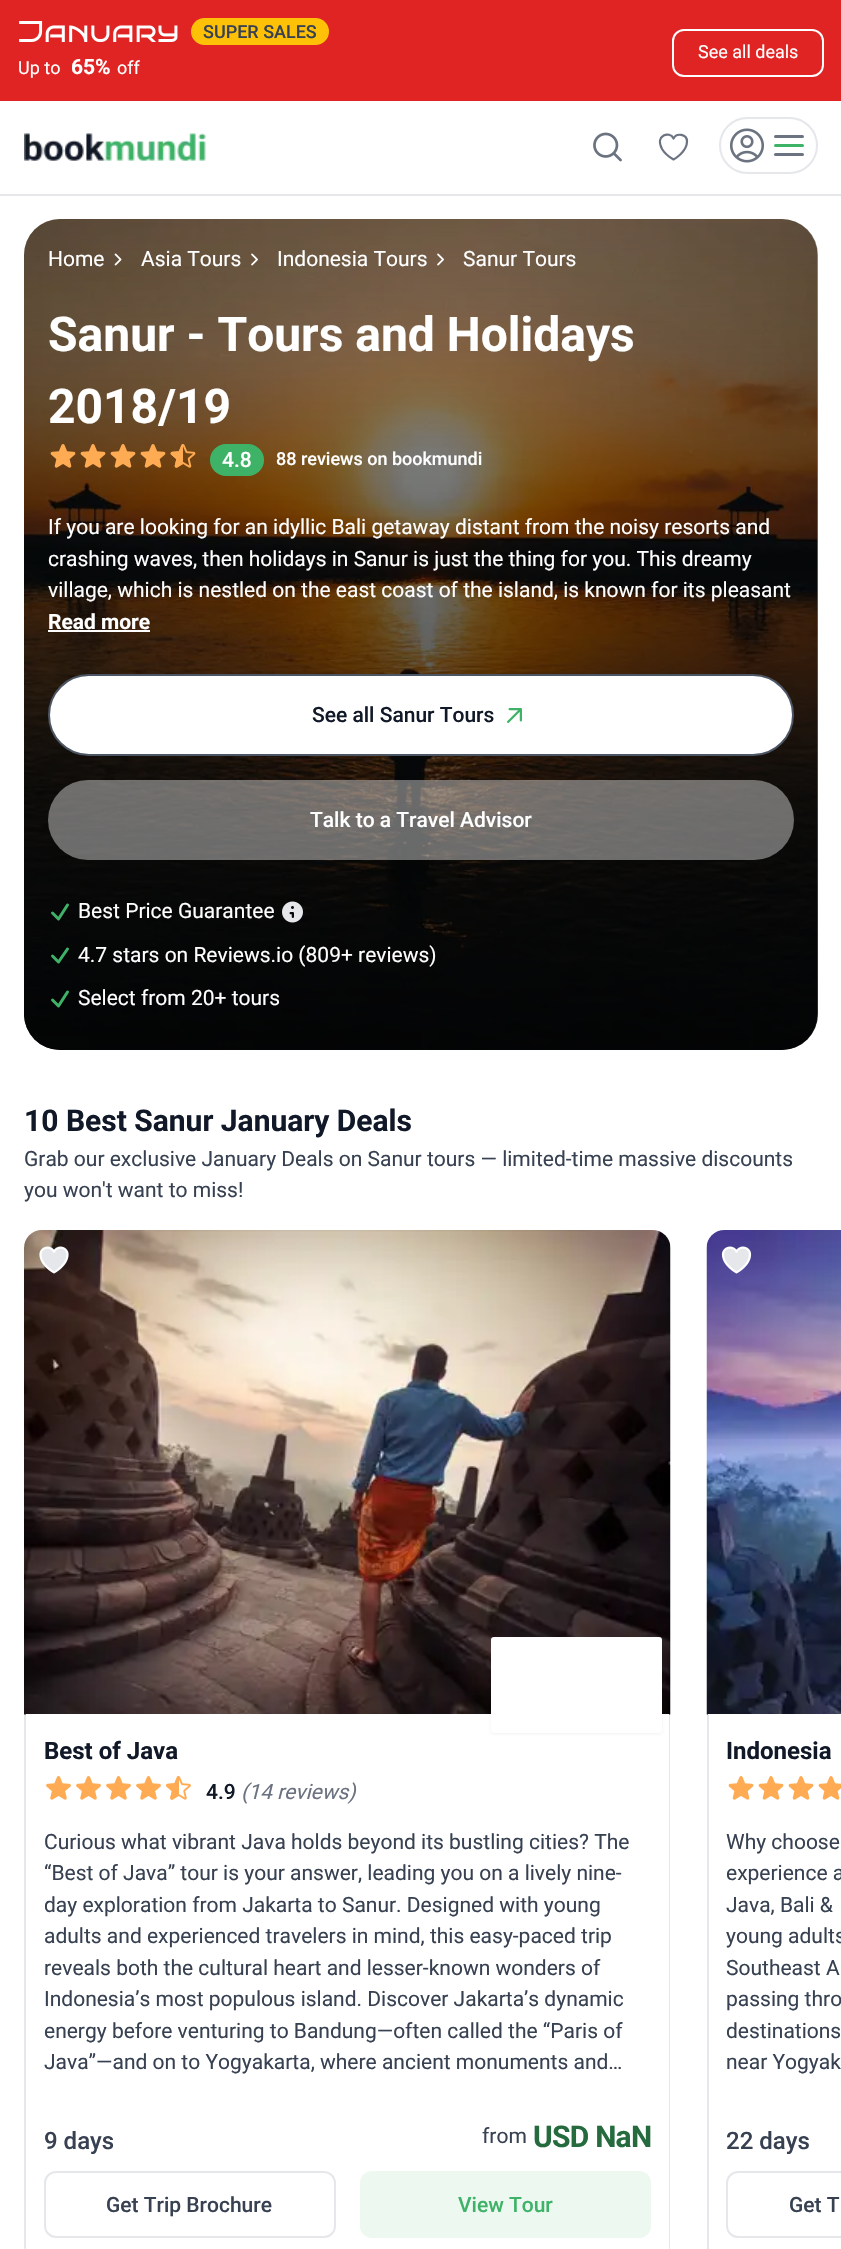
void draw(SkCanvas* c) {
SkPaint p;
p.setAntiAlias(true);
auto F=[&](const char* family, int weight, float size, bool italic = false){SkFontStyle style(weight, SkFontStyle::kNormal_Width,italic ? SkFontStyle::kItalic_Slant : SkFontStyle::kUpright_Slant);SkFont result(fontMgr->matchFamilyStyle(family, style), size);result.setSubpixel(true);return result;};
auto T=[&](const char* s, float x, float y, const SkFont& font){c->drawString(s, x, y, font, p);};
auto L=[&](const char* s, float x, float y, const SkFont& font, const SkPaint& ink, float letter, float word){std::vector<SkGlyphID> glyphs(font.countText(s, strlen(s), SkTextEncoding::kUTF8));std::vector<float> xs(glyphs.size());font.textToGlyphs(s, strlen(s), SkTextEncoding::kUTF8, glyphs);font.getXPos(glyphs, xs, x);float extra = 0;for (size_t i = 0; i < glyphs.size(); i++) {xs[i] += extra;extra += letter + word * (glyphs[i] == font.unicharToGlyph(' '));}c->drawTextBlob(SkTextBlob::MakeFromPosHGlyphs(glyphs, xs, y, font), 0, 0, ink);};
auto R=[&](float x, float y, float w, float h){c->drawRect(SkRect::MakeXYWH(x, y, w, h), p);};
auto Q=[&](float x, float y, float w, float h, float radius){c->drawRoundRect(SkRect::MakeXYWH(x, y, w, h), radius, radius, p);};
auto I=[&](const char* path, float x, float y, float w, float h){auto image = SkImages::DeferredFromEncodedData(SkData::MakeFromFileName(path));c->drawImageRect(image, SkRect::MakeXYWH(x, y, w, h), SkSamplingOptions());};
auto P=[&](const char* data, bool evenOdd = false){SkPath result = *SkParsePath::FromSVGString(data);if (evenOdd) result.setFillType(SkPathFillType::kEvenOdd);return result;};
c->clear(0xffffffff);
p.setColor(0xffe02424);
R(0,0,841,101);
I("1.png",19,21,159,21);
p.setColor(0xffffc107);
Q(191,18,138,27,13.5);
auto f1 = F("Roboto",500,18);
p.setColor(0xff374151);
T("SUPER SALES",203,38,f1);
auto f2 = F("Roboto",400,18);
p.setColor(0xffffffff);
T("Up to",18,74,f2);
auto f3 = F("Roboto",700,21);
T("65%",71,74,f3);
T("off",117,74,f2);
p.setStroke(true);
p.setStrokeWidth(2);
c->drawRoundRect(SkRect::MakeXYWH(673,30,150,46),11,11,p);
p.setStroke(false);
T("See all deals",698,58,f2);
I("2.png",24,133,182,28);
I("3.png",593,132,29,30);
p.setStroke(true);
p.setStrokeWidth(2.2);
p.setStrokeCap(SkPaint::kRound_Cap);
p.setStrokeJoin(SkPaint::kRound_Join);
p.setColor(0xff6b7280);
c->drawPath(P("M687 141.5c0-7.5-10.5-9-13.5-3c-3.5-8-19-3.5-11.5 10.5c2.5 4 7 8 11.5 10.5c0 0 13.5-7.5 13.5-18z"),p);
p.setStrokeWidth(2);
p.setStrokeCap(SkPaint::kButt_Cap);
p.setStrokeJoin(SkPaint::kMiter_Join);
p.setColor(0xffe5e7eb);
c->drawRoundRect(SkRect::MakeXYWH(720,118,97,55),27.5,27.5,p);
I("4.png",730,128,34,35);
p.setStroke(false);
p.setColor(0xff6b7280);
Q(774,135,30,3,1.5);
p.setColor(0xff3eb368);
Q(774,144,30,3,1.5);
p.setColor(0xff6b7280);
Q(774,153,30,3,1.5);
p.setColor(0xffe5e7eb);
R(0,194,841,2);
I("5.png",24,219,794,831);
{
const SkColor colors[] = {0x66000000,0xcc000000};
const float stops[] = {0,1};
const SkPoint ends[] = {{421,219}, {421,1050}};
p.setShader(SkGradientShader::MakeLinear(ends, colors, stops, 2, SkTileMode::kClamp));
p.setAlpha(255);
}
Q(24,219,794,831,36);
auto f4 = F("Roboto",400,21);
p.setShader(nullptr);
p.setColor(0xffffffff);
T("Home",48,266,f4);
I("6.png",114,253,8,13);
T("Asia Tours",141,266,f4);
I("7.png",251,253,7,13);
T("Indonesia Tours",277,266,f4);
I("8.png",437,253,7,13);
T("Sanur Tours",463,266,f4);
auto f5 = F("Roboto",700,48);
T("Sanur - Tours and Holidays",48,351,f5);
T("2018/19",48,423,f5);
I("9.png",50,444,26,24);
I("10.png",80,444,26,24);
I("11.png",110,444,26,24);
I("12.png",140,444,26,24);
I("13.png",170,444,26,24);
I("14.png",170,444,13,24);
p.setColor(0xff3eb368);
Q(210,444,54,32,16);
auto f6 = F("Roboto",500,21);
p.setColor(0xffffffff);
T("4.8",222,467,f6);
T("88 reviews on bookmundi",276,465,f1);
T("If you are looking for an idyllic Bali getaway distant from the noisy resorts and",48,534,f4);
T("crashing waves, then holidays in Sanur is just the thing for you. This dreamy",48,566,f4);
T("village, which is nestled on the east coast of the island, is known for its pleasant",48,597,f4);
T("Read more",48,629,f3);
R(48,630,102,2);
c->drawRoundRect(SkRect::MakeXYWH(49,675,744,80),40,40,p);
p.setStroke(true);
p.setColor(0xff4b5563);
c->drawRoundRect(SkRect::MakeXYWH(49,675,744,80),40,40,p);
p.setStroke(false);
p.setColor(0xff111928);
T("See all Sanur Tours",312,722,f6);
I("15.png",507,708,15,15);
p.setColor(0x66ffffff);
Q(48,780,746,80,40);
p.setColor(0xffffffff);
T("Talk to a Travel Advisor",310,827,f6);
p.setStroke(true);
p.setStrokeWidth(3);
p.setStrokeCap(SkPaint::kRound_Cap);
p.setStrokeJoin(SkPaint::kRound_Join);
p.setColor(0xff3eb368);
c->drawPath(P("M52.5 913l6 6l9-14"),p);
p.setStroke(false);
p.setColor(0xffffffff);
T("Best Price Guarantee",78,918,f4);
I("16.png",282,901,21,22);
p.setStroke(true);
p.setColor(0xff3eb368);
c->drawPath(P("M52.5 956l6 6l9-13m-15 51l6 6l9-14"),p);
p.setStroke(false);
p.setColor(0xffffffff);
T("4.7 stars on Reviews.io (809+ reviews)",78,962,f4);
T("Select from 20+ tours",78,1005,f4);
auto f7 = F("Roboto",700,30);
p.setColor(0xff111928);
T("10 Best Sanur January Deals",24,1131,f7);
p.setColor(0xff374151);
T("Grab our exclusive January Deals on Sanur tours — limited-time massive discounts",24,1166,f4);
T("you won't want to miss!",24,1197,f4);
I("17.png",24,1230,647,485);
I("18.png",39,1246,30,28);
p.setColor(0xffffffff);
c->drawPath(P("M26 1714h643v530c0 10-7 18-17 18h-610c-9 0-16-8-16-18z"),p);
p.setColor(0x0d000000);
p.setMaskFilter(SkMaskFilter::MakeBlur(kNormal_SkBlurStyle, 1.5));
c->drawRoundRect(SkRect::MakeXYWH(491,1638,171,96),3,3,p);
p.setMaskFilter(nullptr);
p.setColor(0xffffffff);
Q(491,1637,171,96,3);
p.setColor(0xffe5e7eb);
c->drawPath(P("M669 1715h1v531c0 2 0 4-1 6z"),p);
c->drawPath(P("M24 1715v531c0 2 1 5 2 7v-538z"),p);
auto f8 = F("Roboto",700,24);
p.setColor(0xff111928);
T("Best of Java",44,1759,f8);
I("19.png",46,1776,25,24);
I("19.png",76,1776,25,24);
I("19.png",106,1776,25,24);
I("19.png",136,1776,25,24);
I("20.png",166,1776,25,24);
I("21.png",166,1776,13,24);
T("4.9",206,1799,f6);
auto f9 = F("Roboto",400,21,true);
p.setColor(0xff6b7280);
T("(14 reviews)",241,1799,f9);
p.setColor(0xff374151);
T("Curious what vibrant Java holds beyond its bustling cities? The",44,1849,f4);
T("“Best of Java” tour is your answer, leading you on a lively nine-",44,1880,f4);
T("day exploration from Jakarta to Sanur. Designed with young",44,1912,f4);
T("adults and experienced travelers in mind, this easy-paced trip",44,1943,f4);
T("reveals both the cultural heart and lesser-known wonders of",44,1975,f4);
T("Indonesia’s most populous island. Discover Jakarta’s dynamic",44,2006,f4);
T("energy before venturing to Bandung—often called the “Paris of",44,2038,f4);
T("Java”—and on to Yogyakarta, where ancient monuments and…",44,2069,f4);
auto f10 = F("Roboto",500,24);
T("9 days",44,2149,f10);
T("from",482,2143,f4);
p.setColor(0xff256b3e);
L("USD NaN",533,2147,f7,p,-.75,0);
p.setStroke(true);
p.setStrokeWidth(2);
p.setStrokeCap(SkPaint::kButt_Cap);
p.setStrokeJoin(SkPaint::kMiter_Join);
p.setColor(0xffe5e7eb);
c->drawRoundRect(SkRect::MakeXYWH(45,2172,290,65),11,11,p);
p.setStroke(false);
p.setColor(0xff374151);
T("Get Trip Brochure",106,2212,f6);
p.setColor(0xffecf8f0);
Q(360,2171,291,67,12);
p.setColor(0xff3eb368);
T("View Tour",458,2212,f6);
I("22.png",706,1230,135,485);
I("23.png",721,1246,31,28);
p.setColor(0xffffffff);
c->drawPath(P("M708 1714h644v530c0 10-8 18-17 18h-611c-9 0-16-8-16-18z"),p);
p.setColor(0xffe5e7eb);
c->drawPath(P("M707 1715h2v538h-1l-1-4z"),p);
p.setColor(0xff111928);
T("Indonesia",726,1759,f8);
I("24.png",728,1776,26,24);
I("24.png",758,1776,26,24);
I("24.png",788,1776,26,24);
I("25.png",818,1776,23,24);
p.setColor(0xff374151);
T("Why choose",726,1849,f4);
T("experience a",726,1880,f4);
T("Java, Bali &",726,1912,f4);
T("young adults",726,1943,f4);
T("Southeast A",726,1975,f4);
T("passing thro",726,2006,f4);
T("destinations",726,2038,f4);
T("near Yogyak",726,2069,f4);
T("22 days",726,2149,f10);
p.setStroke(true);
p.setColor(0xffe5e7eb);
c->drawRoundRect(SkRect::MakeXYWH(727,2172,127,65),11,11,p);
p.setStroke(false);
p.setColor(0xff374151);
T("Get T",789,2212,f6);
}
